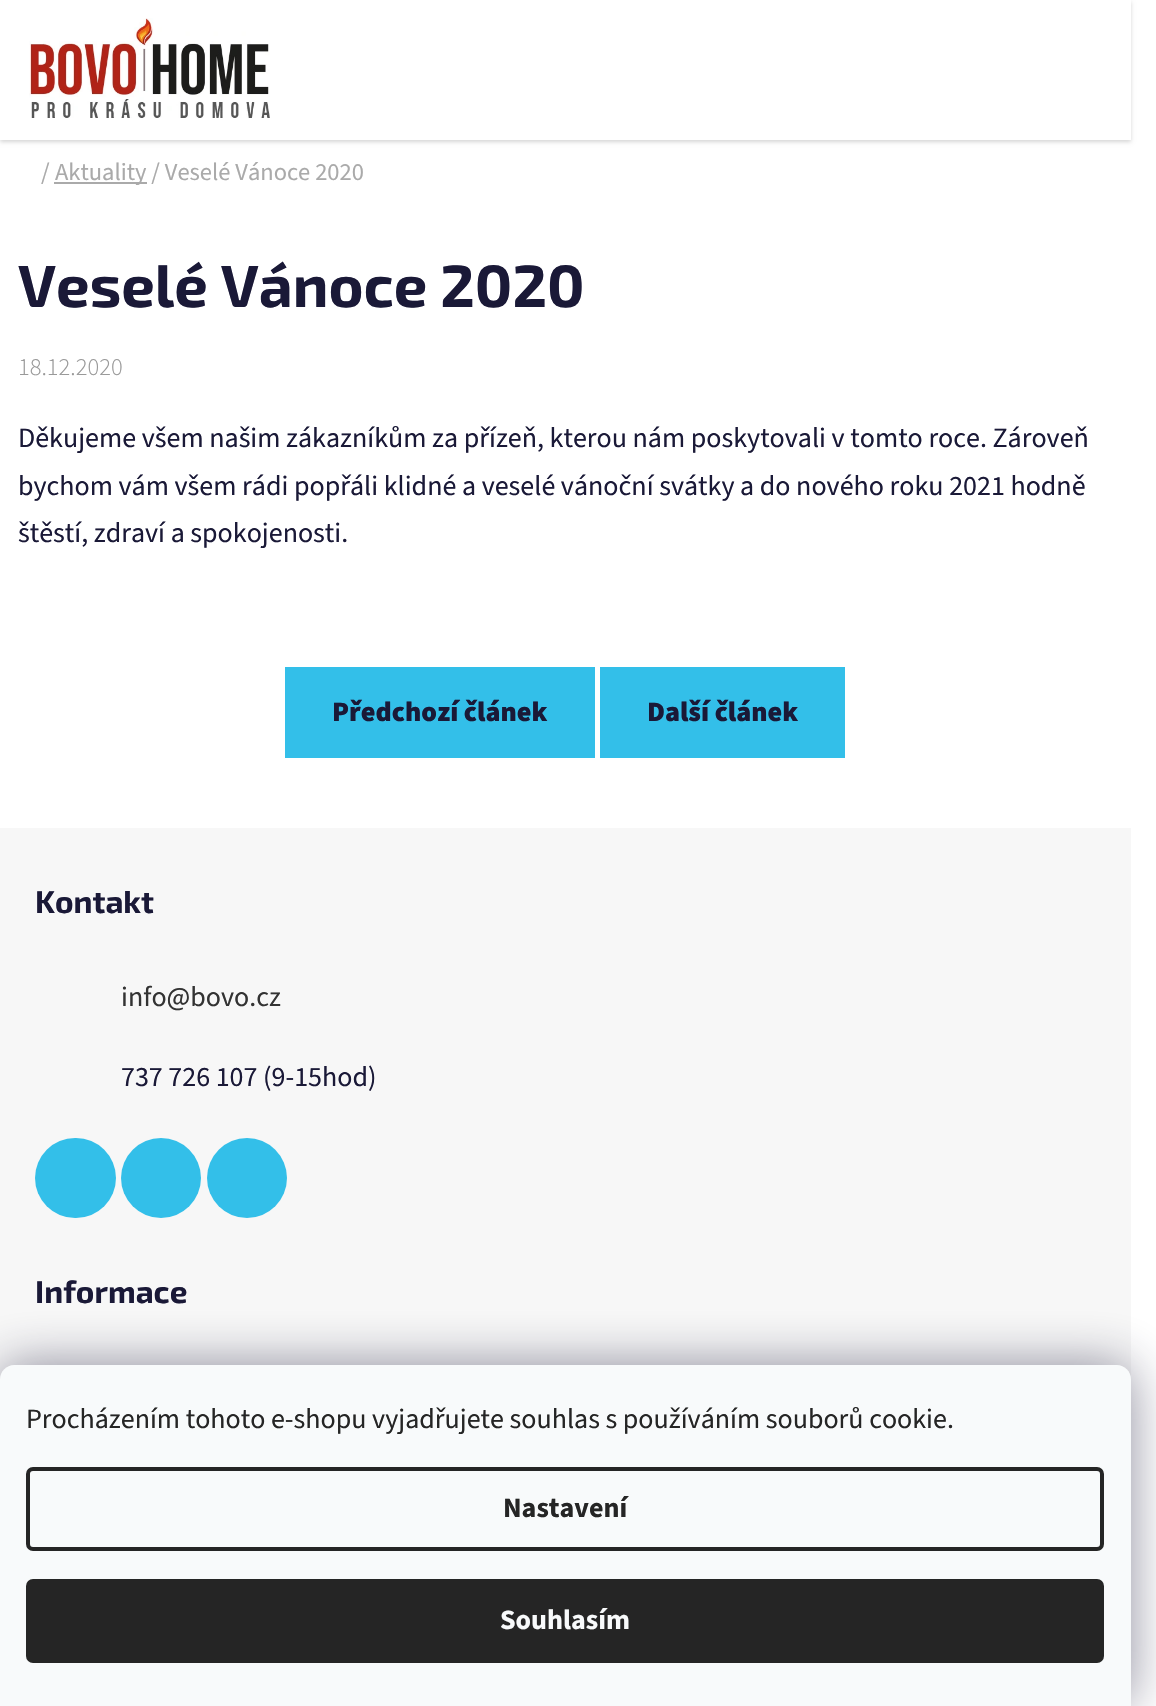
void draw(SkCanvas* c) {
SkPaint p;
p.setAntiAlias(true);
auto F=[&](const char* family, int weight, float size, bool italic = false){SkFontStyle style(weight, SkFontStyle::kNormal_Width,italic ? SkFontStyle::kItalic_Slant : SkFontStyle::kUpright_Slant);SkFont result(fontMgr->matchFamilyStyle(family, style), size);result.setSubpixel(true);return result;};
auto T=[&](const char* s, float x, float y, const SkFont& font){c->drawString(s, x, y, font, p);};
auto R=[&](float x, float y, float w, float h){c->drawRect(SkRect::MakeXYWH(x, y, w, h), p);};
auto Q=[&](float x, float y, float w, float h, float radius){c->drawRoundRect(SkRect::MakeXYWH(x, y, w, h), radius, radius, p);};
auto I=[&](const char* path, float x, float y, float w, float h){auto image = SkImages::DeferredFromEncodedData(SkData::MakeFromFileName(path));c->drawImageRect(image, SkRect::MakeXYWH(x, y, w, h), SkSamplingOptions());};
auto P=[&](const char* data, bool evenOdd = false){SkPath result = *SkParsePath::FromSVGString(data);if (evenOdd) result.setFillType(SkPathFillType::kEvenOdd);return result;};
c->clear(0xffffffff);
p.setColor(0x29000000);
p.setMaskFilter(SkMaskFilter::MakeBlur(kNormal_SkBlurStyle, 2));
c->drawRect(SkRect::MakeXYWH(0,2,1131,140),p);
p.setMaskFilter(nullptr);
p.setColor(0xffffffff);
R(0,0,1131,140);
I("1.png",29,18,241,100);
auto f1 = F("Source Sans 3",400,24.5);
p.setColor(0xffaaaaaa);
T("/",41,180,f1);
R(54,182,93,2);
T("Aktuality / Veselé Vánoce 2020",55,180,f1);
auto f2 = F("Exo 2",700,59.5);
p.setColor(0xff1a1937);
T("Veselé Vánoce 2020",18,307,f2);
auto f3 = F("Source Sans 3",300,24.5);
p.setColor(0xff999999);
T("18.12.2020",18,375,f3);
auto f4 = F("Source Sans 3",400,28);
p.setColor(0xff1a1937);
T("Děkujeme všem našim zákazníkům za přízeň, kterou nám poskytovali v tomto roce. Zároveň",18,447,f4);
T("bychom vám všem rádi popřáli klidné a veselé vánoční svátky a do nového roku 2021 hodně",18,495,f4);
T("štěstí, zdraví a spokojenosti.",18,542,f4);
p.setColor(0xff33bfe9);
R(285,667,310,91);
auto f5 = F("Source Sans 3",900,28);
p.setColor(0xff1a1937);
T("Předchozí článek",332,721,f5);
p.setColor(0xff33bfe9);
R(600,667,245,91);
p.setColor(0xff1a1937);
T("Další článek",647,721,f5);
p.setColor(0xfff7f7f7);
R(0,828,1131,551);
auto f6 = F("Exo 2",700,31.5);
p.setColor(0xff1a1937);
T("Kontakt",35,913,f6);
p.setColor(0xff333333);
T("info@bovo.cz",121,1006,f4);
p.setColor(0xff1a1937);
T("737 726 107 (9-15hod)",121,1086,f4);
p.setColor(0xff33bfe9);
Q(35,1138,81,80,40);
c->drawCircle(161,1178,40,p);
c->drawCircle(247,1178,40,p);
p.setColor(0xff1a1937);
T("Informace",35,1303,f6);
p.setColor(0x801b1939);
p.setMaskFilter(SkMaskFilter::MakeBlur(kNormal_SkBlurStyle, 26));
c->drawRoundRect(SkRect::MakeXYWH(0,1365,1131,341),14,14,p);
p.setMaskFilter(nullptr);
p.setColor(0xfff8fafb);
c->drawPath(P("M14 1365h1103c7.5 0 14 6.5 14 14v327h-1131v-327c0-7.5 6.5-14 14-14z"),p);
p.setColor(0xff252525);
T("Procházením tohoto e-shopu vyjadřujete souhlas s používáním souborů cookie.",26,1428,f4);
p.setStroke(true);
p.setStrokeWidth(4);
c->drawRoundRect(SkRect::MakeXYWH(28,1469,1074,80),5,5,p);
auto f7 = F("Source Sans 3",700,28);
p.setStroke(false);
T("Nastavení",503,1517,f7);
Q(26,1579,1078,84,7);
p.setColor(0xfff8fafb);
T("Souhlasím",500,1629,f7);
}
